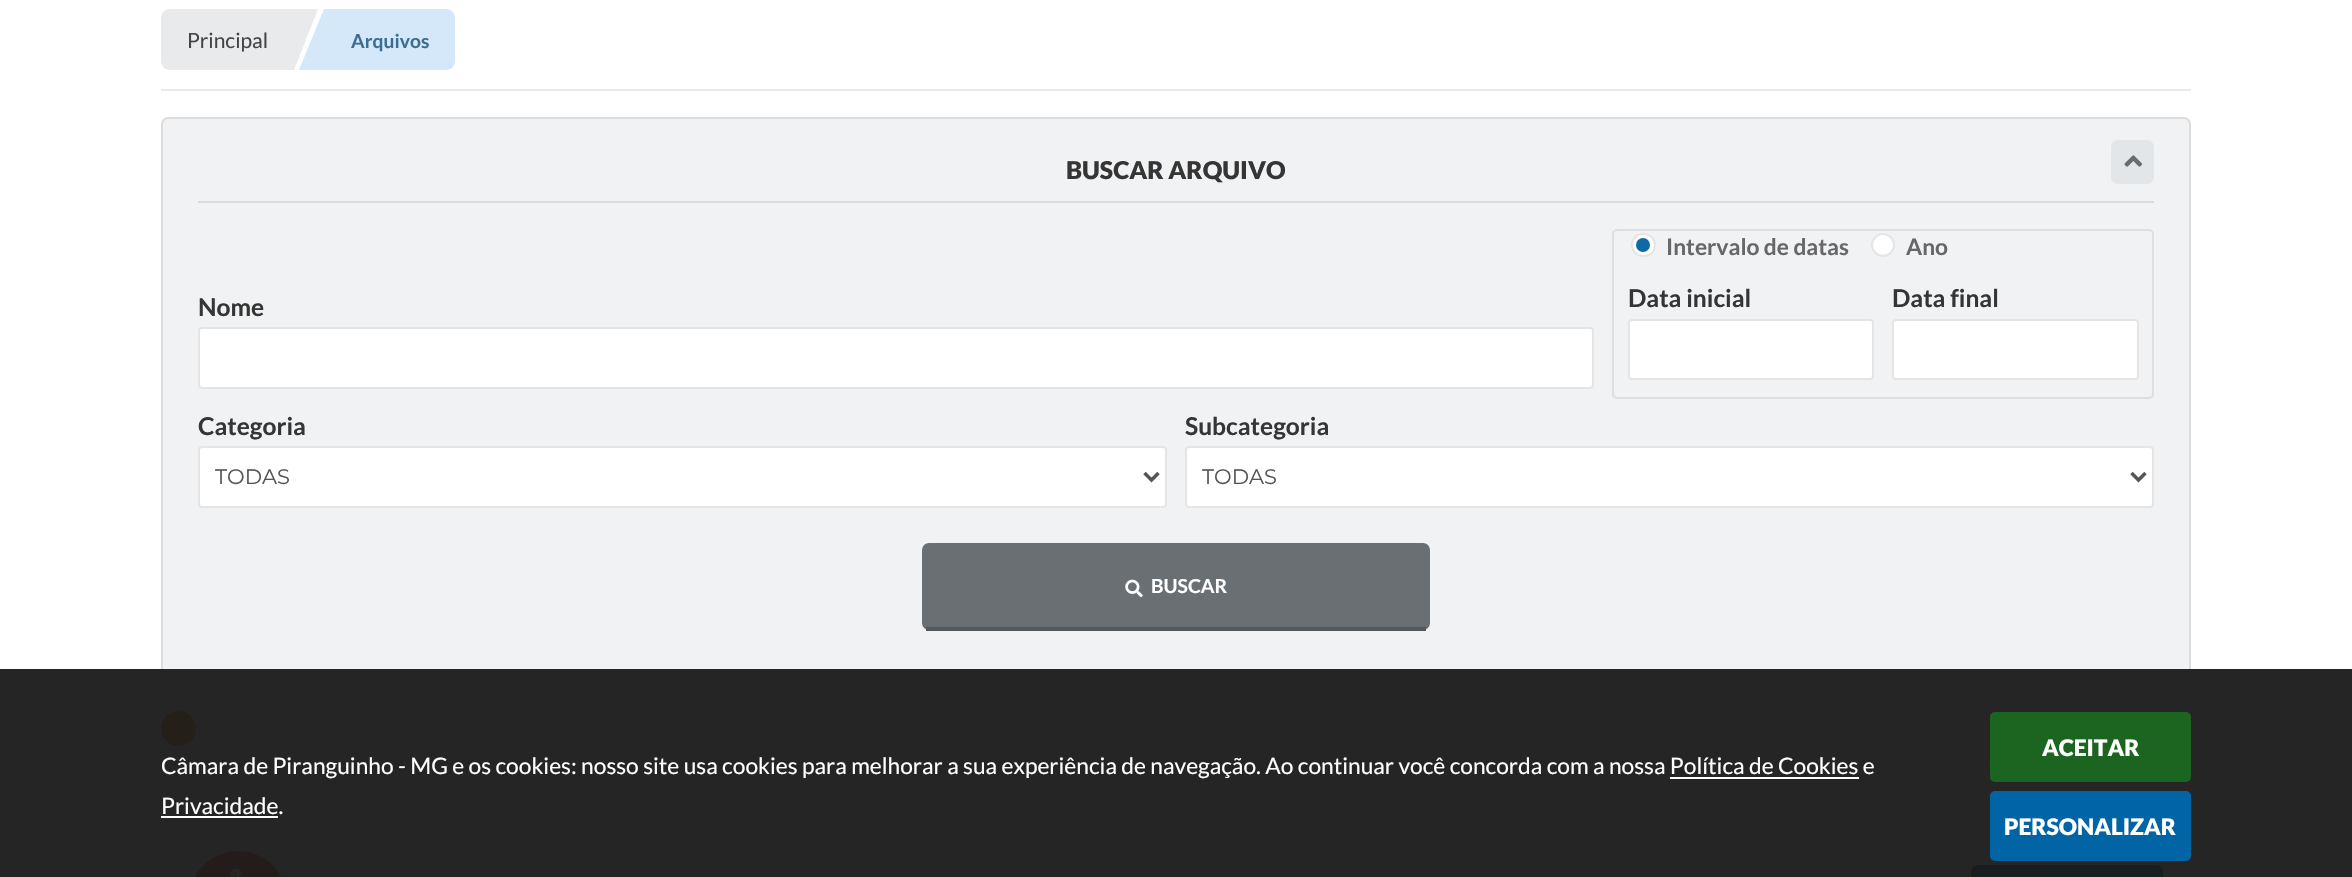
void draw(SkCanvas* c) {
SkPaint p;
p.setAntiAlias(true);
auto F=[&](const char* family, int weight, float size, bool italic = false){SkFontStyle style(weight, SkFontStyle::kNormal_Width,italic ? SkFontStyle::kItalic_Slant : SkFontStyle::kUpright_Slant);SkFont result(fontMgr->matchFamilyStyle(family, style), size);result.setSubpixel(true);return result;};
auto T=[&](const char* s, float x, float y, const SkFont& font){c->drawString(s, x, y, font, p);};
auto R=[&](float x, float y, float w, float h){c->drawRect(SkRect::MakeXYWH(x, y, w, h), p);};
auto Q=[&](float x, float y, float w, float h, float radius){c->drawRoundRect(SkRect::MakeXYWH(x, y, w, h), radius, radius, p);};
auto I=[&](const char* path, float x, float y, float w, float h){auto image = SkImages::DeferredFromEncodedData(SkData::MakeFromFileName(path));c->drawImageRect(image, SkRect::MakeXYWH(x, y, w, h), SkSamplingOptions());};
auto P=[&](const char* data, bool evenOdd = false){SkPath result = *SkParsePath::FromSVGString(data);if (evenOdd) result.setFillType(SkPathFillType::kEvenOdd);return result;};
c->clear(0xffffffff);
p.setColor(0xffe9e9e9);
R(161,89,2030,2);
p.setColor(0xffe9eaec);
c->drawPath(P("M170 9h124v61h-124c-5 0-9-4-9-9v-43c0-5 4-9 9-9z"),p);
auto f1 = F("Lato",400,21);
p.setColor(0xff444444);
T("Principal",187,48,f1);
p.setColor(0xffe9eaec);
c->drawPath(P("M294 9h24l-24 61z"),p);
p.setColor(0xffd4e8f9);
c->drawPath(P("M324 9h122c5 0 9 4 9 9v43c0 5-4 9-9 9h-122z"),p);
c->drawPath(P("M324 70h-25l25-61z"),p);
auto f2 = F("Lato",700,19.25);
p.setColor(0xff3d6d92);
T("Arquivos",351,48,f2);
p.setColor(0xfff1f2f3);
c->drawRoundRect(SkRect::MakeXYWH(162,118,2028,557),6,6,p);
p.setStroke(true);
p.setStrokeWidth(2);
p.setColor(0xffdddddd);
c->drawRoundRect(SkRect::MakeXYWH(162,118,2028,557),6,6,p);
p.setStroke(false);
p.setColor(0xffdbdbdc);
R(198,201,1956,2);
auto f3 = F("Lato",900,24.5);
p.setColor(0xff353535);
T("BUSCAR ARQUIVO",1066,179,f3);
p.setColor(0xffe3e6e8);
Q(2111,140,43,44,7);
I("1.png",2124,155,18,12);
auto f4 = F("Lato",700,24.5);
p.setColor(0xff353535);
T("Nome",198,316,f4);
p.setColor(0xffffffff);
c->drawRoundRect(SkRect::MakeXYWH(199,328,1394,60),3,3,p);
p.setStroke(true);
p.setColor(0xffe5e5e5);
c->drawRoundRect(SkRect::MakeXYWH(199,328,1394,60),3,3,p);
p.setColor(0xffdcdee0);
c->drawRoundRect(SkRect::MakeXYWH(1613,230,540,168),4,4,p);
p.setStroke(false);
p.setColor(0xffffffff);
c->drawRoundRect(SkRect::MakeXYWH(1632,234,23,22),11,11,p);
p.setStroke(true);
p.setColor(0xffe5e5e5);
c->drawRoundRect(SkRect::MakeXYWH(1632,234,23,22),11,11,p);
p.setStroke(false);
p.setColor(0xff0f69a9);
c->drawCircle(1643,245,7,p);
auto f5 = F("Lato",700,22.75);
p.setColor(0xff67676b);
T("Intervalo de datas",1666,255,f5);
p.setColor(0xffffffff);
c->drawCircle(1883,245,11,p);
p.setStroke(true);
p.setColor(0xffe5e5e5);
c->drawCircle(1883,245,11,p);
p.setStroke(false);
p.setColor(0xff67676b);
T("Ano",1906,255,f5);
p.setColor(0xff353535);
T("Data inicial",1628,307,f4);
p.setColor(0xffffffff);
c->drawRoundRect(SkRect::MakeXYWH(1629,320,244,59),3,3,p);
p.setStroke(true);
p.setColor(0xffe5e5e5);
c->drawRoundRect(SkRect::MakeXYWH(1629,320,244,59),3,3,p);
p.setStroke(false);
p.setColor(0xff353535);
T("Data final",1892,307,f4);
p.setColor(0xffffffff);
c->drawRoundRect(SkRect::MakeXYWH(1893,320,245,59),3,3,p);
p.setStroke(true);
p.setColor(0xffe5e5e5);
c->drawRoundRect(SkRect::MakeXYWH(1893,320,245,59),3,3,p);
p.setStroke(false);
p.setColor(0xff353535);
T("Categoria",198,435,f4);
p.setColor(0xffffffff);
c->drawRoundRect(SkRect::MakeXYWH(199,447,967,60),3,3,p);
p.setStroke(true);
p.setColor(0xffe5e5e5);
c->drawRoundRect(SkRect::MakeXYWH(199,447,967,60),3,3,p);
p.setStrokeWidth(3.5);
p.setColor(0xff555555);
c->drawPath(P("M1144.5 473l7 7l7-7"),p);
auto f6 = F("Montserrat",400,21);
p.setStroke(false);
T("TODAS",215,484,f6);
p.setColor(0xff353535);
T("Subcategoria",1185,435,f4);
p.setColor(0xffffffff);
c->drawRoundRect(SkRect::MakeXYWH(1186,447,967,60),3,3,p);
p.setStroke(true);
p.setStrokeWidth(2);
p.setColor(0xffe5e5e5);
c->drawRoundRect(SkRect::MakeXYWH(1186,447,967,60),3,3,p);
p.setStrokeWidth(3.5);
p.setColor(0xff555555);
c->drawPath(P("M2131.5 473l7 7l7-7"),p);
p.setStroke(false);
T("TODAS",1202,484,f6);
p.setColor(0xff6a6f73);
Q(922,543,508,87,7);
p.setColor(0xff54585b);
R(926,627,500,4);
I("2.png",1125,579,18,19);
p.setColor(0xffffffff);
T("BUSCAR",1151,593,f2);
p.setColor(0xffdddddd);
R(161,763,1829,2);
p.setColor(0xfff27826);
c->drawCircle(178.5,728.5,17.5,p);
p.setColor(0xfff2f3f5);
c->drawRoundRect(SkRect::MakeXYWH(162,801,2028,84),6,6,p);
p.setStroke(true);
p.setStrokeWidth(2);
p.setColor(0xffeceef1);
c->drawRoundRect(SkRect::MakeXYWH(162,801,2028,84),6,6,p);
I("3.png",194,851,88,26);
p.setStroke(false);
p.setColor(0xff0f65a2);
Q(1971,865,192,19,7);
p.setColor(0x1a000000);
c->drawPath(P("M1978 865h63v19h-63c-4 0-7-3-7-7v-5c0-4 3-7 7-7z"),p);
p.setColor(0xf2191919);
R(0,669,2352,208);
auto f7 = F("Lato",400,22.75);
p.setColor(0xffffffff);
T("Câmara de Piranguinho - MG e os cookies: nosso site usa cookies para melhorar a sua experiência de navegação. Ao continuar você concorda com a nossa Política de Cookies e",161,774,f7);
T("Privacidade.",161,814,f7);
R(1670,777,189,2);
R(161,816,117,2);
p.setColor(0xff1b6520);
Q(1990,712,201,70,5);
auto f8 = F("Lato",900,22.75);
p.setColor(0xffffffff);
T("ACEITAR",2042,756,f8);
p.setColor(0xff0164a4);
Q(1990,791,201,70,5);
p.setColor(0xffffffff);
T("PERSONALIZAR",2004,835,f8);
}
